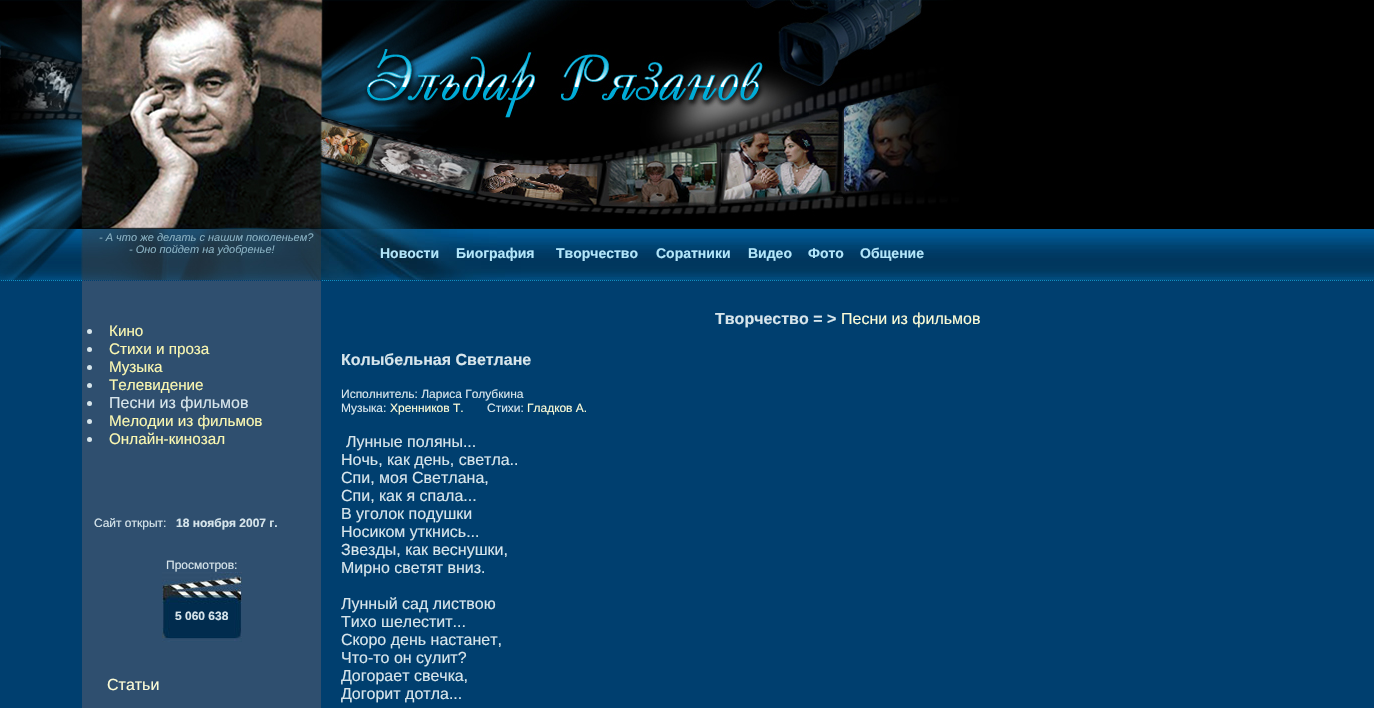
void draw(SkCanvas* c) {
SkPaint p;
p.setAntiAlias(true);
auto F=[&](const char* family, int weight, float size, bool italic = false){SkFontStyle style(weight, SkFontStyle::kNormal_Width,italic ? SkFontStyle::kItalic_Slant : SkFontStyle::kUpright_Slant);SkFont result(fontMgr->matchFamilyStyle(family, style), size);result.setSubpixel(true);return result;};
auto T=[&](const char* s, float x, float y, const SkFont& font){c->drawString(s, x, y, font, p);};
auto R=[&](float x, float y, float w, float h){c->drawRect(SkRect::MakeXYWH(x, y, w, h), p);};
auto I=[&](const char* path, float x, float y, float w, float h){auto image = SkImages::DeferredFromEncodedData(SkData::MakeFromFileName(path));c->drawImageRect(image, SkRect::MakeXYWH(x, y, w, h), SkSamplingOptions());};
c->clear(0xff000000);
I("1.png",0,0,82,229);
I("2.png",82,0,239,229);
I("3.png",321,0,639,229);
I("4.png",0,229,82,51);
I("5.png",82,229,239,51);
auto f1 = F("Liberation Sans",400,11,true);
p.setColor(0xff89b1c2);
T("- А что же делать с нашим поколеньем?",99,241,f1);
T("- Оно пойдет на удобренье!",129,253,f1);
I("6.png",321,229,639,51);
I("7.png",960,229,414,51);
I("8.png",0,280,82,1);
I("9.png",82,280,239,1);
I("10.png",321,280,1053,1);
p.setColor(0xff003f6f);
R(0,281,82,427);
p.setColor(0xff2f4f6f);
R(82,281,239,427);
p.setColor(0xffd7e5eb);
c->drawCircle(89.5,331.5,2.5,p);
auto f2 = F("Liberation Sans",400,15.25);
p.setColor(0xfffaf7b1);
T("Кино",109,336,f2);
p.setColor(0xffd7e5eb);
c->drawCircle(89.5,349.5,2.5,p);
p.setColor(0xfffaf7b1);
T("Стихи и проза",109,354,f2);
p.setColor(0xffd7e5eb);
c->drawCircle(89.5,367.5,2.5,p);
p.setColor(0xfffaf7b1);
T("Музыка",109,372,f2);
p.setColor(0xffd7e5eb);
c->drawCircle(89.5,385.5,2.5,p);
p.setColor(0xfffaf7b1);
T("Телевидение",109,390,f2);
p.setColor(0xffd7e5eb);
c->drawCircle(89.5,403.5,2.5,p);
auto f3 = F("Liberation Sans",400,16);
T("Песни из фильмов",109,408,f3);
c->drawCircle(89.5,421.5,2.5,p);
p.setColor(0xfffaf7b1);
T("Мелодии из фильмов",109,426,f2);
p.setColor(0xffd7e5eb);
c->drawCircle(89.5,439.5,2.5,p);
p.setColor(0xfffaf7b1);
T("Онлайн-кинозал",109,444,f2);
auto f4 = F("Liberation Sans",400,12);
p.setColor(0xffd7e5eb);
T("Сайт открыт:",94,527,f4);
auto f5 = F("Liberation Sans",700,12);
T("18 ноября 2007 г.",176,527,f5);
T("Просмотров:",166,569,f4);
I("11.png",162,572,80,70);
T("5 060 638",175,620,f5);
p.setColor(0xfffcfcd7);
T("Статьи",107,690,f3);
p.setColor(0xff003f6f);
R(321,281,1053,427);
auto f6 = F("Liberation Sans",700,16);
p.setColor(0xffd7e5eb);
T("Творчество = >",715,324,f6);
p.setColor(0xfffcfcd7);
T("Песни из фильмов",841,324,f3);
p.setColor(0xffd7e5eb);
T("Колыбельная Светлане",341,365,f6);
T("Исполнитель: Лариса Голубкина",341,398,f4);
T("Музыка:",341,412,f4);
p.setColor(0xfffcfcd7);
T("Хренников Т.",390,412,f4);
p.setColor(0xffd7e5eb);
T("Стихи:",487,412,f4);
p.setColor(0xfffcfcd7);
T("Гладков А.",527,412,f4);
p.setColor(0xffd7e5eb);
T("Лунные поляны...",346,447,f3);
T("Ночь, как день, светла..",341,465,f3);
T("Спи, моя Светлана,",341,483,f3);
T("Спи, как я спала...",341,501,f3);
T("В уголок подушки",341,519,f3);
T("Носиком уткнись...",341,537,f3);
T("Звезды, как веснушки,",341,555,f3);
T("Мирно светят вниз.",341,573,f3);
T("Лунный сад листвою",341,609,f3);
T("Тихо шелестит...",341,627,f3);
T("Скоро день настанет,",341,645,f3);
T("Что-то он сулит?",341,663,f3);
T("Догорает свечка,",341,681,f3);
T("Догорит дотла...",341,699,f3);
auto f7 = F("Liberation Sans",700,14);
p.setColor(0xffb3e6fa);
T("Новости",380,258,f7);
T("Биография",456,258,f7);
T("Творчество",556,258,f7);
T("Соратники",656,258,f7);
T("Видео",748,258,f7);
T("Фото",808,258,f7);
T("Общение",860,258,f7);
}
